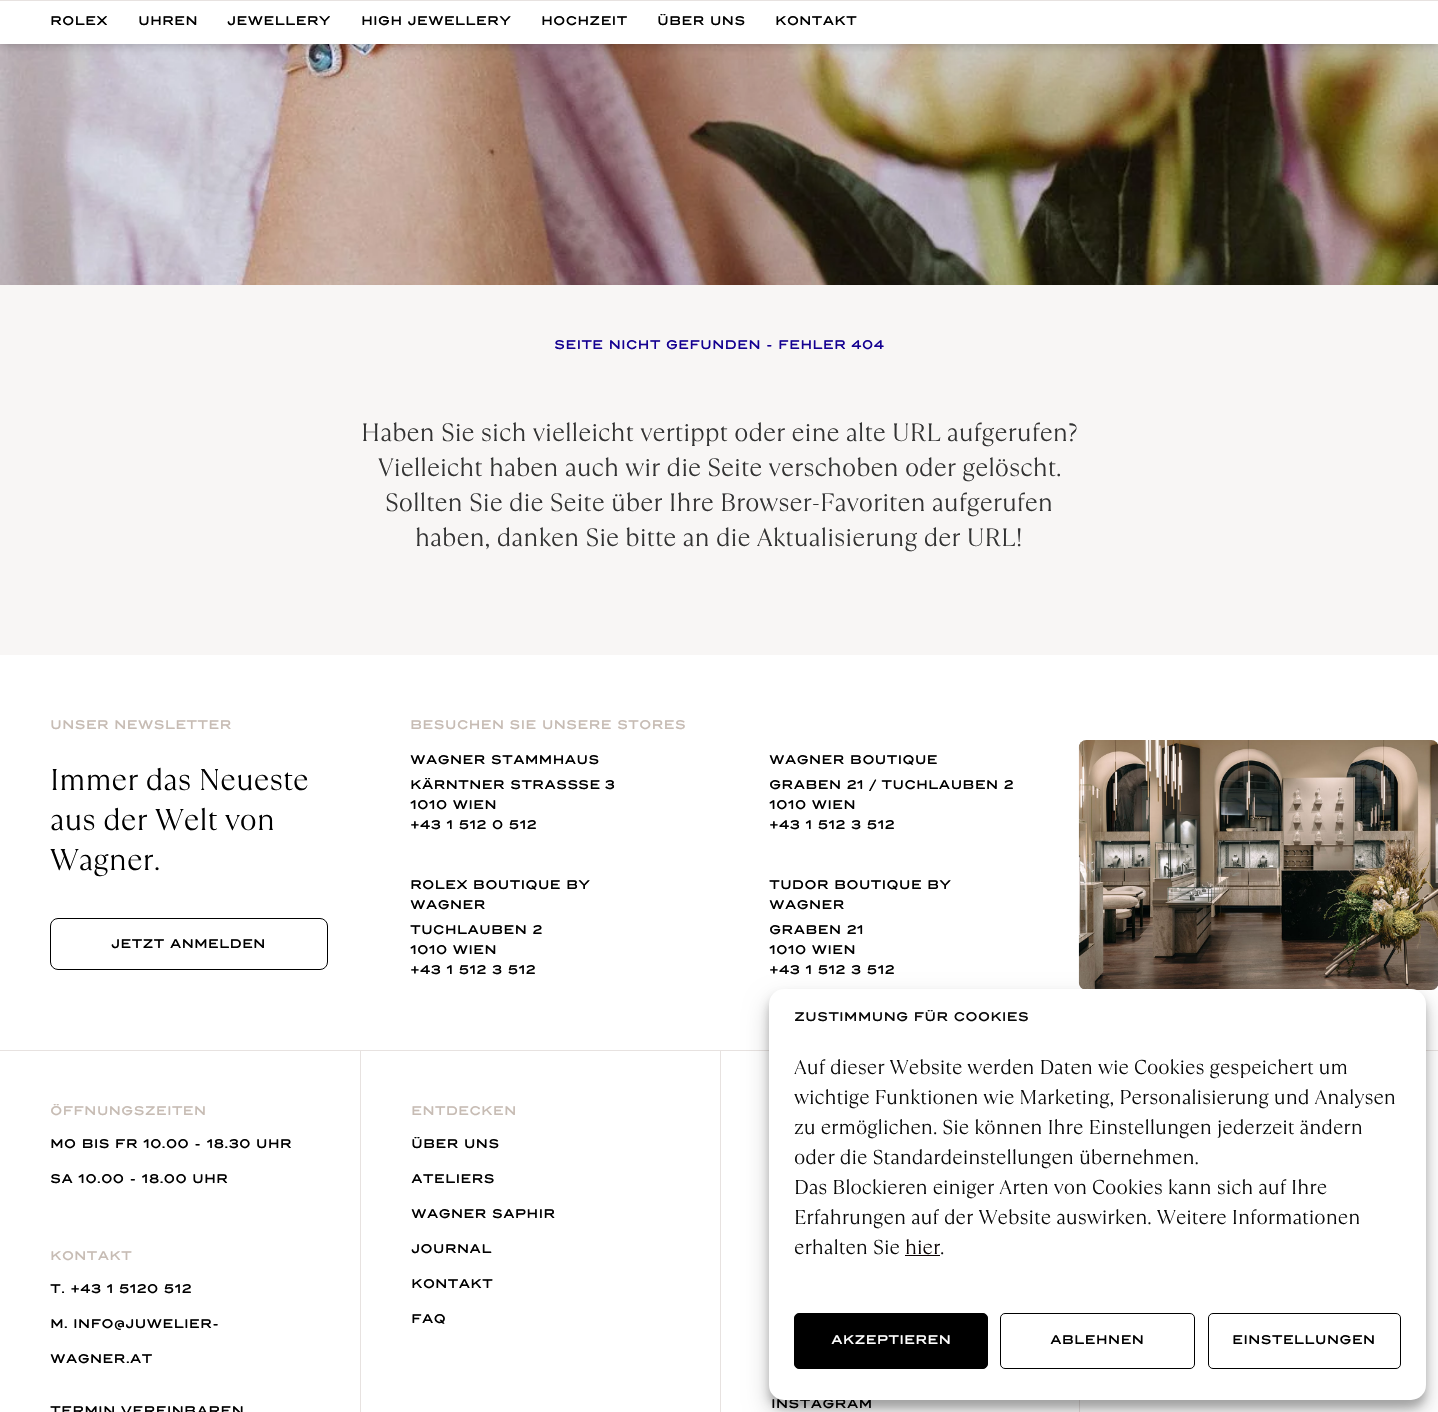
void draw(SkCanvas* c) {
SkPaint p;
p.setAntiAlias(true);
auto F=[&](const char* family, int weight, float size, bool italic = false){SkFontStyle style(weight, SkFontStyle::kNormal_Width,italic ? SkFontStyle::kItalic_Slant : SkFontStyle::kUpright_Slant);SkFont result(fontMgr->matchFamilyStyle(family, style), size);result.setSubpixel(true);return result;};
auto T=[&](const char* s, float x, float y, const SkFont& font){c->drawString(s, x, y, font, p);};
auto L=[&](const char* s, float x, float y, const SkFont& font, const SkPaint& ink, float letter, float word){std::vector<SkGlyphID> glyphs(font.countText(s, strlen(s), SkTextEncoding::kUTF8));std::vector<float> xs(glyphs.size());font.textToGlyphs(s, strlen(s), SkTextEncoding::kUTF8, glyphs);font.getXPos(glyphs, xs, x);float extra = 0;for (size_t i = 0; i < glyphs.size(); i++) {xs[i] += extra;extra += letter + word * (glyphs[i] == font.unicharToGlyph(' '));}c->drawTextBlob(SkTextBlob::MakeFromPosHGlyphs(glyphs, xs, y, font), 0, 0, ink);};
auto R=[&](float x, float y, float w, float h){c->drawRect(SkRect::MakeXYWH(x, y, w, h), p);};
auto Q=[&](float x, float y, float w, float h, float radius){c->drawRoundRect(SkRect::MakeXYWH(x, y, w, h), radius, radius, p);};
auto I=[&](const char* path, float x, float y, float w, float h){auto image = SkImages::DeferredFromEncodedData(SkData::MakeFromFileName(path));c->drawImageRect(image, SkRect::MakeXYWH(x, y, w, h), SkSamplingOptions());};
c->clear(0xfff8f6f5);
I("1.png",0,44,1438,241);
p.setColor(0x1a000000);
p.setMaskFilter(SkMaskFilter::MakeBlur(kNormal_SkBlurStyle, 2.5));
c->drawRect(SkRect::MakeXYWH(3,-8,1433,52),p);
p.setMaskFilter(nullptr);
p.setMaskFilter(SkMaskFilter::MakeBlur(kNormal_SkBlurStyle, 4));
c->drawRect(SkRect::MakeXYWH(1,-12,1437,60),p);
p.setMaskFilter(nullptr);
p.setColor(0xffffffff);
R(0,1,1438,43);
p.setColor(0xffe7e2e0);
R(0,0,1438,1);
auto f1 = F("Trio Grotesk",500,12);
p.setColor(0xff000000);
T("ROLEX",50,25,f1);
T("UHREN",138,25,f1);
T("JEWELLERY",227,25,f1);
T("HIGH JEWELLERY",361,25,f1);
T("HOCHZEIT",541,25,f1);
T("ÜBER UNS",657,25,f1);
T("KONTAKT",775,25,f1);
p.setColor(0xff140091);
T("SEITE NICHT GEFUNDEN - FEHLER 404",554,349,f1);
auto f2 = F("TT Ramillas",300,25);
p.setColor(0xff333333);
T("Haben Sie sich vielleicht vertippt oder eine alte URL aufgerufen?",361,441,f2);
T("Vielleicht haben auch wir die Seite verschoben oder gelöscht.",378,476,f2);
T("Sollten Sie die Seite über Ihre Browser-Favoriten aufgerufen",385,511,f2);
T("haben, danken Sie bitte an die Aktualisierung der URL!",415,546,f2);
p.setColor(0xffffffff);
R(0,655,1438,757);
p.setColor(0xffc7bcb4);
T("UNSER NEWSLETTER",50,729,f1);
auto f3 = F("TT Ramillas",300,30);
p.setColor(0xff000000);
T("Immer das Neueste",50,790,f3);
T("aus der Welt von",50,830,f3);
T("Wagner.",50,870,f3);
p.setStroke(true);
p.setStrokeWidth(1);
c->drawRoundRect(SkRect::MakeXYWH(50.5,918.5,277,51),7.5,7.5,p);
p.setStroke(false);
T("JETZT ANMELDEN",111,948,f1);
p.setColor(0xffc7bcb4);
T("BESUCHEN SIE UNSERE STORES",410,729,f1);
p.setColor(0xff000000);
T("WAGNER STAMMHAUS",410,764,f1);
T("KÄRNTNER STRASS",410,789,f1);
L("SE 3",578,789,f1,p,0,-1);
T("1010 WIEN",410,809,f1);
T("+43 1 512 0 512",410,829,f1);
T("WAGNER BOUTIQUE",769,764,f1);
T("GRABEN 21 / TUCHLAUBEN 2",769,789,f1);
T("1010 WIEN",769,809,f1);
T("+43 1 512 3 512",769,829,f1);
T("ROLEX BOUTIQUE BY",410,889,f1);
T("WAGNER",410,909,f1);
T("TUCHLAUBEN 2",410,934,f1);
T("1010 WIEN",410,954,f1);
T("+43 1 512 3 512",410,974,f1);
T("TUDOR BOUTIQUE BY",769,889,f1);
T("WAGNER",769,909,f1);
T("GRABEN 21",769,934,f1);
T("1010 WIEN",769,954,f1);
T("+43 1 512 3 512",769,974,f1);
I("2.png",1078,740,360,250);
p.setColor(0xffe7e2e0);
R(0,1050,1438,1);
p.setColor(0xffc7bcb4);
T("ÖFFNUNGSZEITEN",50,1115,f1);
p.setColor(0xff000000);
T("MO BIS FR 10.00 - 18.30 UHR",50,1148,f1);
T("SA 10.00 - 18.00 UHR",50,1183,f1);
p.setColor(0xffc7bcb4);
T("KONTAKT",50,1260,f1);
p.setColor(0xff000000);
T("T. +43 1 5120 512",50,1293,f1);
T("M. INFO@JUWELIER-",50,1328,f1);
T("WAGNER.AT",50,1363,f1);
T("TERMIN VEREINBAREN",50,1415,f1);
p.setColor(0xffe7e2e0);
R(360,1051,1,361);
p.setColor(0xffc7bcb4);
T("ENTDECKEN",411,1115,f1);
p.setColor(0xff000000);
T("ÜBER UNS",411,1148,f1);
T("ATELIERS",411,1183,f1);
T("WAGNER SAPHIR",411,1218,f1);
T("JOURNAL",411,1253,f1);
T("KONTAKT",411,1288,f1);
T("FAQ",411,1323,f1);
p.setColor(0xffe7e2e0);
R(720,1051,1,361);
p.setColor(0xff000000);
T("INSTAGRAM",771,1408,f1);
p.setColor(0xffe7e2e0);
R(1079,1400,1,12);
p.setColor(0x3b000000);
p.setMaskFilter(SkMaskFilter::MakeBlur(kNormal_SkBlurStyle, 4));
c->drawRoundRect(SkRect::MakeXYWH(769,996,657,412),15,15,p);
p.setMaskFilter(nullptr);
p.setColor(0x30000000);
p.setMaskFilter(SkMaskFilter::MakeBlur(kNormal_SkBlurStyle, 12.5));
c->drawRoundRect(SkRect::MakeXYWH(769,1001,657,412),15,15,p);
p.setMaskFilter(nullptr);
p.setColor(0xffffffff);
Q(769,989,657,411,15);
p.setColor(0xff0a0a0a);
T("ZUSTIMMUNG FÜR COOKIES",794,1021,f1);
auto f4 = F("TT Ramillas",300,20);
T("Auf dieser Website werden Daten wie Cookies gespeichert um",794,1074,f4);
T("wichtige Funktionen wie Marketing, Personalisierung und Analysen",794,1104,f4);
T("zu ermöglichen. Sie können Ihre Einstellungen jederzeit ändern",794,1134,f4);
T("oder die Standardeinstellungen übernehmen.",794,1164,f4);
T("Das Blockieren einiger Arten von Cookies kann sich auf Ihre",794,1194,f4);
T("Erfahrungen auf der Website auswirken. Weitere Informationen",794,1224,f4);
T("erhalten Sie",794,1254,f4);
p.setColor(0xff0a0202);
T("hier",905,1254,f4);
R(905,1255,35,1);
p.setColor(0xff0a0a0a);
T(".",940,1254,f4);
p.setColor(0xff000000);
c->drawRoundRect(SkRect::MakeXYWH(794.5,1313.5,193,55),4.5,4.5,p);
p.setStroke(true);
c->drawRoundRect(SkRect::MakeXYWH(794.5,1313.5,193,55),4.5,4.5,p);
p.setStroke(false);
p.setColor(0xffffffff);
T("AKZEPTIEREN",831,1344,f1);
p.setStroke(true);
p.setColor(0xff000000);
c->drawRoundRect(SkRect::MakeXYWH(1000.5,1313.5,194,55),4.5,4.5,p);
p.setStroke(false);
T("ABLEHNEN",1050,1344,f1);
p.setStroke(true);
c->drawRoundRect(SkRect::MakeXYWH(1208.5,1313.5,192,55),4.5,4.5,p);
p.setStroke(false);
T("EINSTELLUNGEN",1232,1344,f1);
}
